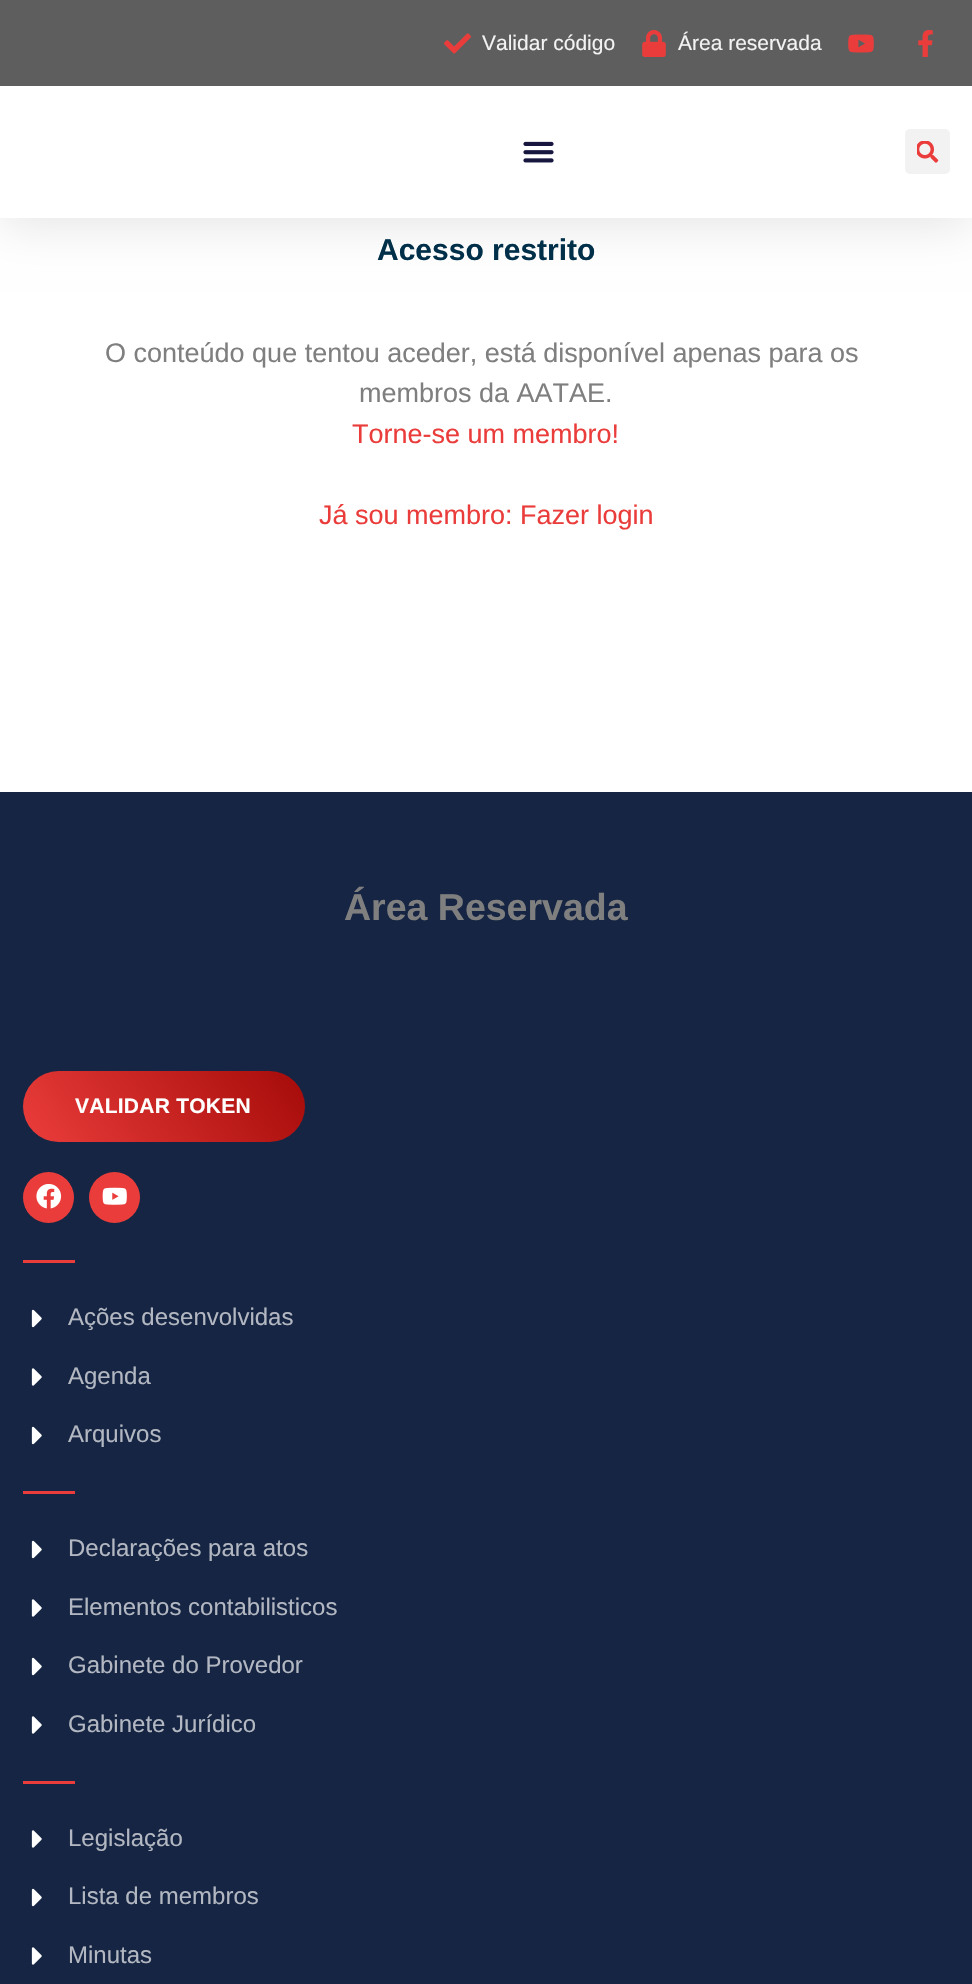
void draw(SkCanvas* c) {
SkPaint p;
p.setAntiAlias(true);
auto F=[&](const char* family, int weight, float size, bool italic = false){SkFontStyle style(weight, SkFontStyle::kNormal_Width,italic ? SkFontStyle::kItalic_Slant : SkFontStyle::kUpright_Slant);SkFont result(fontMgr->matchFamilyStyle(family, style), size);result.setSubpixel(true);return result;};
auto T=[&](const char* s, float x, float y, const SkFont& font){c->drawString(s, x, y, font, p);};
auto L=[&](const char* s, float x, float y, const SkFont& font, const SkPaint& ink, float letter, float word){std::vector<SkGlyphID> glyphs(font.countText(s, strlen(s), SkTextEncoding::kUTF8));std::vector<float> xs(glyphs.size());font.textToGlyphs(s, strlen(s), SkTextEncoding::kUTF8, glyphs);font.getXPos(glyphs, xs, x);float extra = 0;for (size_t i = 0; i < glyphs.size(); i++) {xs[i] += extra;extra += letter + word * (glyphs[i] == font.unicharToGlyph(' '));}c->drawTextBlob(SkTextBlob::MakeFromPosHGlyphs(glyphs, xs, y, font), 0, 0, ink);};
auto R=[&](float x, float y, float w, float h){c->drawRect(SkRect::MakeXYWH(x, y, w, h), p);};
auto Q=[&](float x, float y, float w, float h, float radius){c->drawRoundRect(SkRect::MakeXYWH(x, y, w, h), radius, radius, p);};
auto I=[&](const char* path, float x, float y, float w, float h){auto image = SkImages::DeferredFromEncodedData(SkData::MakeFromFileName(path));c->drawImageRect(image, SkRect::MakeXYWH(x, y, w, h), SkSamplingOptions());};
c->clear(0xffffffff);
p.setColor(0x1a000000);
p.setMaskFilter(SkMaskFilter::MakeBlur(kNormal_SkBlurStyle, 22.5));
c->drawRect(SkRect::MakeXYWH(0,8,972,217),p);
p.setMaskFilter(nullptr);
p.setColor(0xff5e5e5e);
R(0,0,972,86);
I("1.png",444,33,27,21);
auto f1 = F("Liberation Sans",400,21);
p.setColor(0xfff3f3f3);
T("Validar código",482,50,f1);
I("2.png",642,30,24,27);
T("Área reservada",678,50,f1);
I("3.png",848,34,26,19);
I("4.png",918,30,15,27);
p.setColor(0xffffffff);
R(0,86,972,132);
I("5.png",523,141,31,22);
p.setColor(0xfff2f2f2);
Q(905,129,45,45,5);
I("6.png",917,141,22,22);
auto f2 = F("Liberation Sans",700,30);
p.setColor(0xff003049);
T("Acesso restrito",377,260,f2);
auto f3 = F("Liberation Sans",400,27);
p.setColor(0xff7f7f7f);
T("O conteúdo que tentou aceder, está disponível apenas para os",105,362,f3);
T("membros da AATAE.",359,402,f3);
p.setColor(0xffea3d3b);
T("Torne-se um membro!",352,443,f3);
T("Já sou membro: Fazer login",319,524,f3);
{
const SkColor colors[] = {0xff7f7f7f,0xff152543};
const float stops[] = {0,0};
const SkPoint ends[] = {{-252,1229}, {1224,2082}};
p.setShader(SkGradientShader::MakeLinear(ends, colors, stops, 2, SkTileMode::kClamp));
p.setAlpha(255);
}
R(0,792,972,1192);
auto f4 = F("Liberation Sans",700,37.5);
p.setShader(nullptr);
p.setColor(0xff7f7f7f);
T("Área Reservada",344,920,f4);
{
const SkColor colors[] = {0xffea3d3b,0xffa50b09};
const float stops[] = {0,1};
const SkPoint ends[] = {{54,1185}, {273,1027}};
p.setShader(SkGradientShader::MakeLinear(ends, colors, stops, 2, SkTileMode::kClamp));
p.setAlpha(255);
}
Q(23,1071,282,71,35.5);
auto f5 = F("Liberation Sans",700,21);
p.setShader(nullptr);
p.setColor(0xffffffff);
L("VALIDAR TOKEN",75,1113,f5,p,.25,0);
p.setColor(0xffea3d3b);
c->drawCircle(48.5,1197.5,25.5,p);
I("7.png",36,1184,26,25);
c->drawCircle(114.5,1197.5,25.5,p);
I("8.png",102,1187,25,18);
R(23,1260,52,3);
I("9.png",31,1309,11,19);
auto f6 = F("Liberation Sans",400,24);
p.setColor(0xffb2b7c1);
T("Ações desenvolvidas",68,1325,f6);
I("10.png",31,1368,11,18);
T("Agenda",68,1384,f6);
I("9.png",31,1426,11,19);
T("Arquivos",68,1442,f6);
p.setColor(0xffea3d3b);
R(23,1491,52,3);
I("9.png",31,1540,11,19);
p.setColor(0xffb2b7c1);
T("Declarações para atos",68,1556,f6);
I("10.png",31,1599,11,18);
T("Elementos contabilisticos",68,1615,f6);
I("9.png",31,1657,11,19);
T("Gabinete do Provedor",68,1673,f6);
I("10.png",31,1716,11,18);
T("Gabinete Jurídico",68,1732,f6);
p.setColor(0xffea3d3b);
R(23,1781,52,3);
I("10.png",31,1830,11,18);
p.setColor(0xffb2b7c1);
T("Legislação",68,1846,f6);
I("9.png",31,1888,11,19);
T("Lista de membros",68,1904,f6);
I("10.png",31,1947,11,18);
T("Minutas",68,1963,f6);
}
